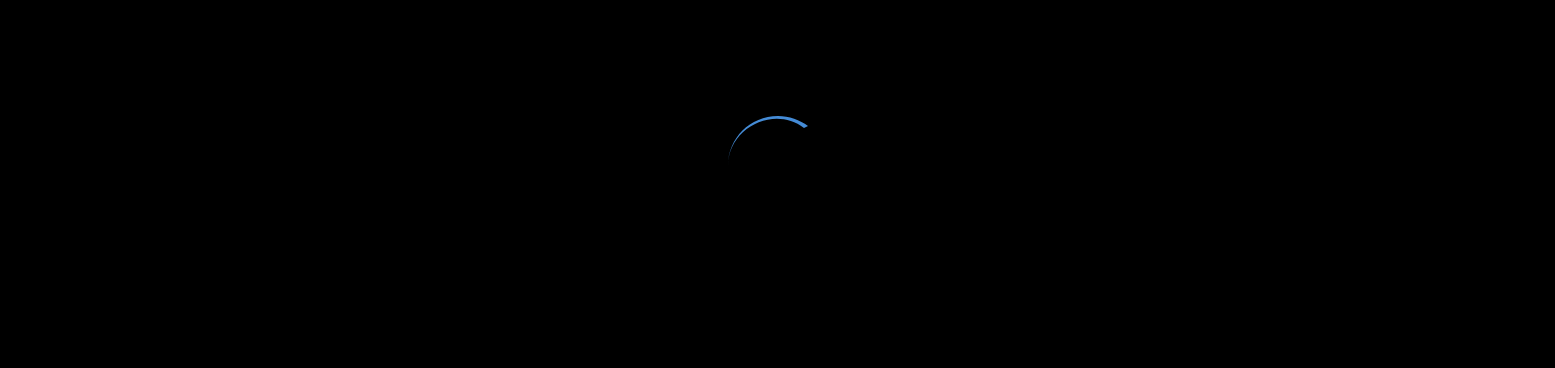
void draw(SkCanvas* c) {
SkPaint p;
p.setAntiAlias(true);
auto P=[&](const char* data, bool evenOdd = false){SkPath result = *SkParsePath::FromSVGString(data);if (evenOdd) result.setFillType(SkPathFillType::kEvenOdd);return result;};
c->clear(0xff000000);
p.setColor(0xff448bd6);
c->drawPath(P("M778 116c-28 0-50 22-50 50c0-38 46-61 76-38l4-2c-8-6-19-10-30-10z"),p);
}
